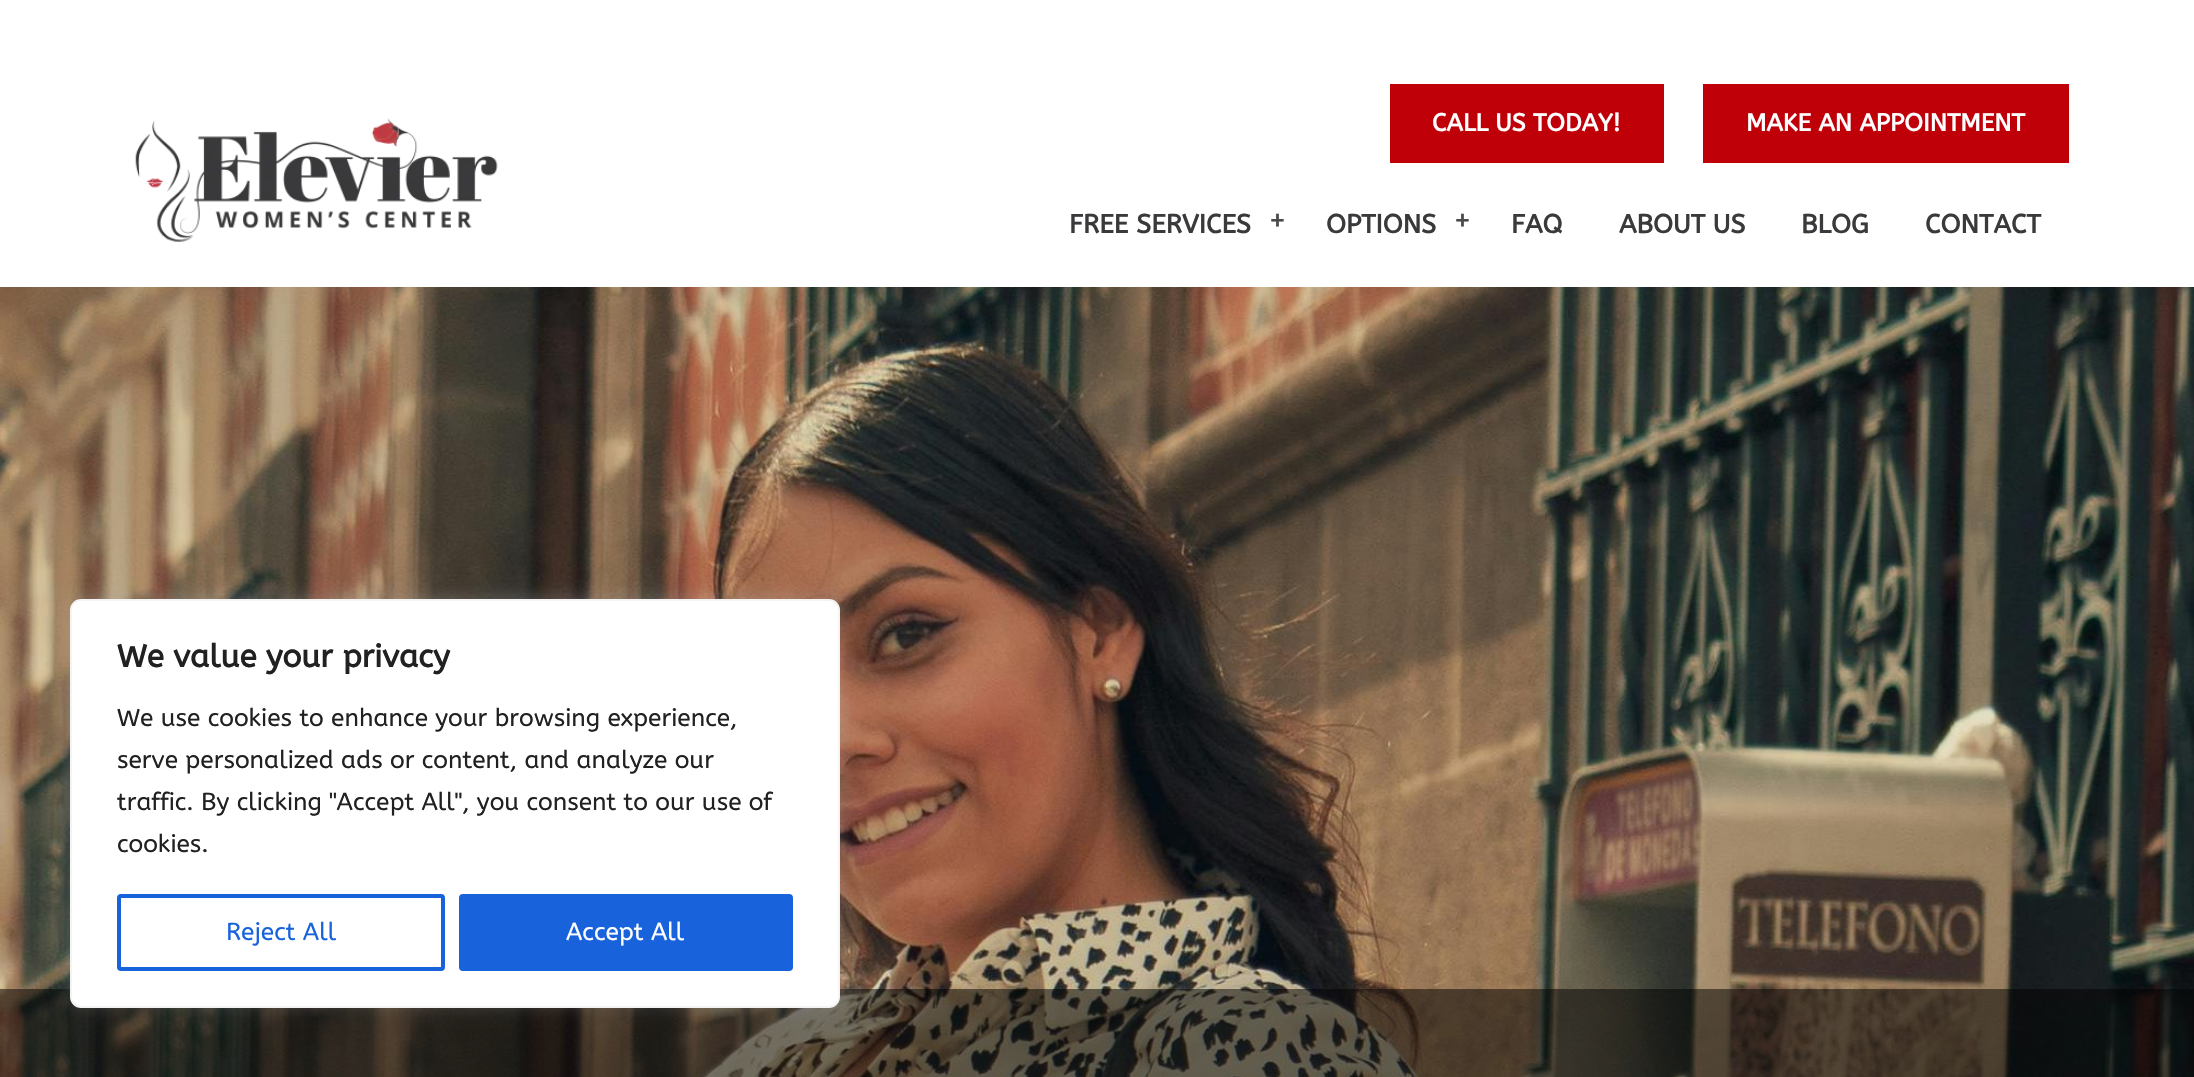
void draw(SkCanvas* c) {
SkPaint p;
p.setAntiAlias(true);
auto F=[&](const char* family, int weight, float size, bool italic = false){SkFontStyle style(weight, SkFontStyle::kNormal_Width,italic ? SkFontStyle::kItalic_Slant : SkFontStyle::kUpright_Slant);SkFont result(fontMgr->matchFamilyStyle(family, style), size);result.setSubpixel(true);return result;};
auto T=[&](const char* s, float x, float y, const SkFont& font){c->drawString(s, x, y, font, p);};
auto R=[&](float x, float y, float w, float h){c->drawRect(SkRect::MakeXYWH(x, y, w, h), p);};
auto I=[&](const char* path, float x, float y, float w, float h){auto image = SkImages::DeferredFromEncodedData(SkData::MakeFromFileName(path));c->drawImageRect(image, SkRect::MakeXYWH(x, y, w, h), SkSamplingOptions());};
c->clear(0xffffffff);
I("1.png",135,118,363,124);
p.setColor(0xffbf0009);
R(1390,84,274,79);
auto f1 = F("ABeeZee",700,24.5);
p.setColor(0xffffffff);
T("CALL US TODAY!",1432,131,f1);
p.setColor(0xffbf0009);
R(1703,84,366,79);
p.setColor(0xffffffff);
T("MAKE AN APPOINTMENT",1746,131,f1);
auto f2 = F("ABeeZee",700,26.25);
p.setColor(0xff3a3a3c);
T("FREE SERVICES",1069,233,f2);
auto f3 = F("ABeeZee",400,31.5);
p.setColor(0xff4a4a4a);
T("+",1268,231,f3);
p.setColor(0xff3a3a3c);
T("OPTIONS",1326,233,f2);
p.setColor(0xff4a4a4a);
T("+",1453,231,f3);
p.setColor(0xff3a3a3c);
T("FAQ",1511,233,f2);
T("ABOUT US",1619,233,f2);
T("BLOG",1801,233,f2);
T("CONTACT",1925,233,f2);
I("2.png",0,287,2194,790);
p.setColor(0x82000000);
R(0,989,2194,88);
p.setColor(0x4dacabab);
p.setMaskFilter(SkMaskFilter::MakeBlur(kNormal_SkBlurStyle, 9));
c->drawRoundRect(SkRect::MakeXYWH(70,597,770,409),11,11,p);
p.setMaskFilter(nullptr);
p.setColor(0xffffffff);
c->drawRoundRect(SkRect::MakeXYWH(71,600,768,407),10,10,p);
p.setStroke(true);
p.setStrokeWidth(2);
p.setColor(0xfff4f4f4);
c->drawRoundRect(SkRect::MakeXYWH(71,600,768,407),10,10,p);
auto f4 = F("ABeeZee",700,31.5);
p.setStroke(false);
p.setColor(0xff212121);
T("We value your privacy",117,667,f4);
auto f5 = F("ABeeZee",400,24.5);
T("We use cookies to enhance your browsing experience,",117,726,f5);
T("serve personalized ads or content, and analyze our",117,768,f5);
T("traffic. By clicking \"Accept All\", you consent to our use of",117,810,f5);
T("cookies.",117,852,f5);
p.setStroke(true);
p.setStrokeWidth(4);
p.setColor(0xff1863dc);
c->drawRoundRect(SkRect::MakeXYWH(119,896,324,73),2,2,p);
p.setStroke(false);
T("Reject All",226,940,f5);
c->drawRoundRect(SkRect::MakeXYWH(461,896,330,73),2,2,p);
p.setStroke(true);
c->drawRoundRect(SkRect::MakeXYWH(461,896,330,73),2,2,p);
p.setStroke(false);
p.setColor(0xffffffff);
T("Accept All",566,940,f5);
}
